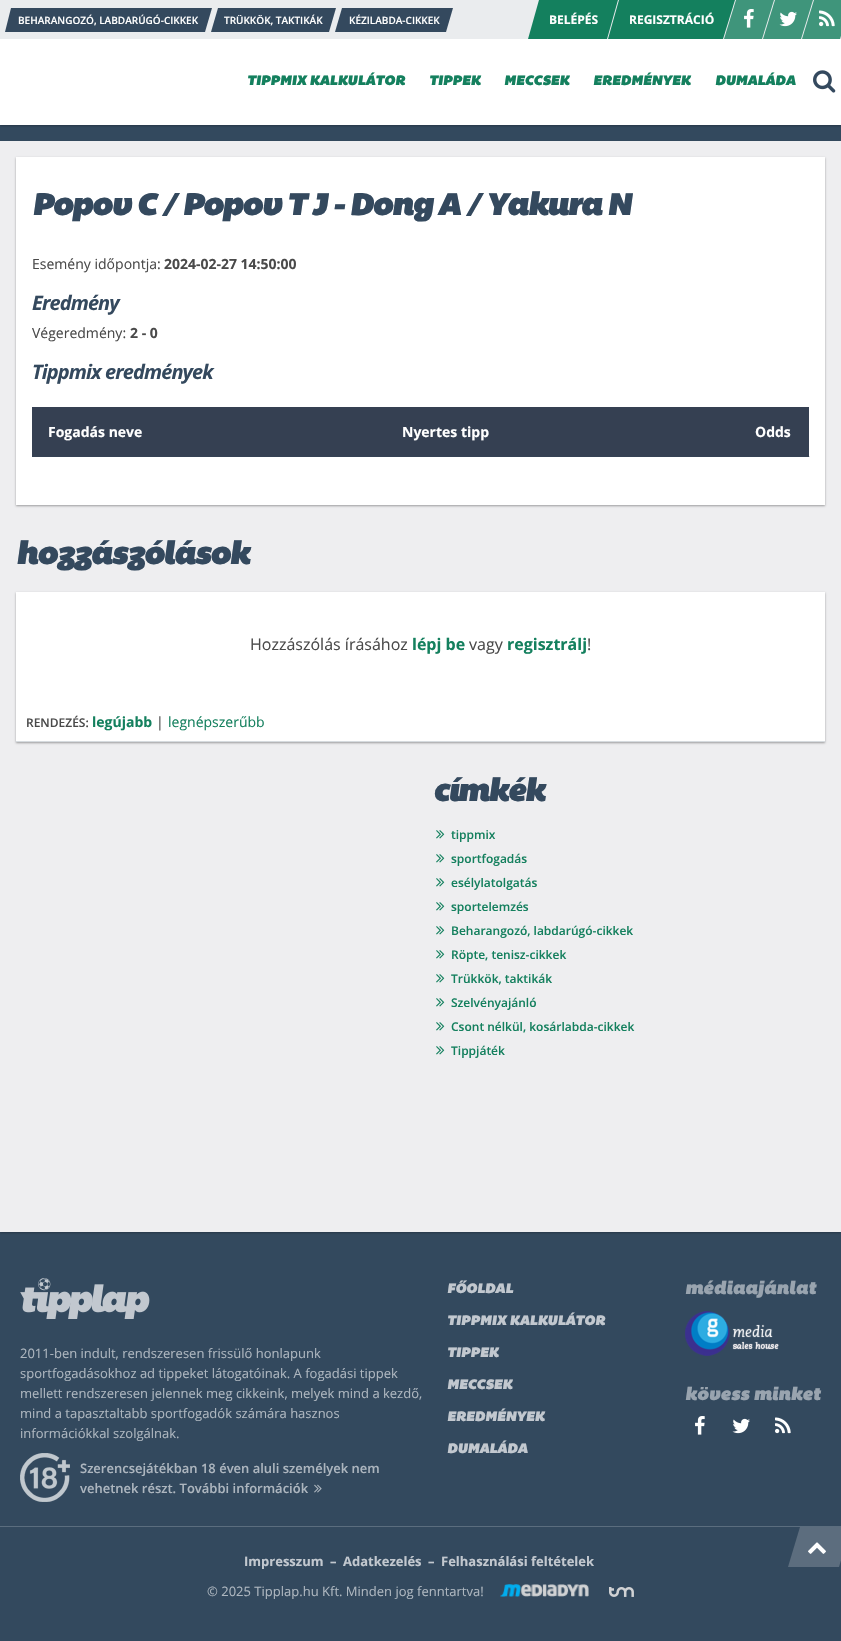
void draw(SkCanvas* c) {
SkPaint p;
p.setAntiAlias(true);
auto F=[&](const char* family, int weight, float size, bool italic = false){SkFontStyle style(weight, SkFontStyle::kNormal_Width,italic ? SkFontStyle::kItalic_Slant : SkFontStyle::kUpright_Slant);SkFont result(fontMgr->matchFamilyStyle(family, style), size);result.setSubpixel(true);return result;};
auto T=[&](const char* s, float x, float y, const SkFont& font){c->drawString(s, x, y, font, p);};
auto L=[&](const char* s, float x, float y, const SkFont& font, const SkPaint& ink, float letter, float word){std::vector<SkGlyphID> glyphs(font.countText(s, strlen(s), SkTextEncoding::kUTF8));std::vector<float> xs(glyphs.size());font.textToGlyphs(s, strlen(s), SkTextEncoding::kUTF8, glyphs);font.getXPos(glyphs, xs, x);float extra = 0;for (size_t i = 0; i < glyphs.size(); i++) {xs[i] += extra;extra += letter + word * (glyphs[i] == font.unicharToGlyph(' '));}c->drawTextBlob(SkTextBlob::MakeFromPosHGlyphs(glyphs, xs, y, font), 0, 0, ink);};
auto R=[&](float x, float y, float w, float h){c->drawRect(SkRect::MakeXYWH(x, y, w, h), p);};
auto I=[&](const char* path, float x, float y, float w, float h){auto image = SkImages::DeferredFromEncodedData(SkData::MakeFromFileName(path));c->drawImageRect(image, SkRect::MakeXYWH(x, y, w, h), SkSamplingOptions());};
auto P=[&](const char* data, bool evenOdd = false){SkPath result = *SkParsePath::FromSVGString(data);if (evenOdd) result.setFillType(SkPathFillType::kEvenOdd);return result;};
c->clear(0xff33495e);
p.setColor(0x40000000);
p.setMaskFilter(SkMaskFilter::MakeBlur(kNormal_SkBlurStyle, 1));
c->drawRect(SkRect::MakeXYWH(0,1,841,125),p);
p.setMaskFilter(nullptr);
p.setColor(0xffffffff);
R(0,39,841,86);
p.setColor(0xffeaecee);
R(0,0,841,39);
p.setColor(0xff34495e);
c->drawPath(P("M11 8h201l-7 24h-200z"),p);
auto f1 = F("Open Sans",600,10);
p.setColor(0xffffffff);
T("BEHARANGOZÓ, LABDARÚGÓ-CIKKEK",18,24,f1);
p.setColor(0xff34495e);
c->drawPath(P("M218 8h118l-7 24h-118z"),p);
p.setColor(0xffffffff);
T("TRÜKKÖK, TAKTIKÁK",224,24,f1);
p.setColor(0xff34495e);
c->drawPath(P("M342 8h111l-7 24h-111z"),p);
p.setColor(0xffffffff);
T("KÉZILABDA-CIKKEK",349,24,f1);
p.setColor(0xff14805e);
c->drawPath(P("M539 0h79l-11 39h-79z"),p);
auto f2 = F("Open Sans",700,12);
p.setColor(0xffffffff);
T("BELÉPÉS",549,24,f2);
p.setColor(0xff14805e);
c->drawPath(P("M619 0h116l-12 39h-115z"),p);
p.setColor(0xffffffff);
T("REGISZTRÁCIÓ",629,24,f2);
p.setColor(0xff3f957b);
c->drawPath(P("M736 0h38l-12 39h-38z"),p);
I("1.png",744,9,10,19);
c->drawPath(P("M775 0h38l-12 39h-38z"),p);
I("2.png",779,11,18,16);
c->drawPath(P("M814 0h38l-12 39h-38z"),p);
I("3.png",819,10,16,17);
auto f3 = F("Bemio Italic",400,14);
p.setColor(0xff14805e);
T("TIPPMIX KALKULÁTOR",247,85,f3);
T("TIPPEK",429,85,f3);
T("MECCSEK",504,85,f3);
T("EREDMÉNYEK",593,85,f3);
T("DUMALÁDA",715,85,f3);
I("4.png",813,70,23,23);
p.setColor(0x40000000);
p.setMaskFilter(SkMaskFilter::MakeBlur(kNormal_SkBlurStyle, 1));
c->drawRect(SkRect::MakeXYWH(0,142,841,1091),p);
p.setMaskFilter(nullptr);
p.setColor(0xffeeeef0);
R(0,141,841,1091);
p.setColor(0x59000000);
p.setMaskFilter(SkMaskFilter::MakeBlur(kNormal_SkBlurStyle, 1));
c->drawRect(SkRect::MakeXYWH(16,158,809,348),p);
p.setMaskFilter(nullptr);
p.setColor(0xffffffff);
R(16,157,809,348);
p.setColor(0xffd6dbdf);
R(809,456,1,1);
auto f4 = F("Bemio Italic",400,32);
p.setColor(0xff34495e);
L("Popov C / Popov T J - Dong A / Yakura N",32,215,f4,p,-1.4,0);
auto f5 = F("Open Sans",400,14);
p.setColor(0xff4a4a4a);
T("Esemény időpontja:",32,269,f5);
auto f6 = F("Open Sans",700,14);
T("2024-02-27 14:50:00",164,269,f6);
auto f7 = F("Open Sans",700,20,true);
p.setColor(0xff34495e);
L("Eredmény",32,310,f7,p,-.9,0);
p.setColor(0xff4a4a4a);
T("Végeredmény:",32,338,f5);
T("2 - 0",130,338,f6);
p.setColor(0xff34495e);
L("Tippmix eredmények",32,379,f7,p,-.9,0);
p.setColor(0xff354052);
R(32,407,777,49);
p.setColor(0xffffffff);
T("Fogadás neve",48,437,f6);
T("Nyertes tipp",402,437,f6);
p.setColor(0xff354254);
R(32,456,777,1);
p.setColor(0xffffffff);
T("Odds",755,437,f6);
p.setColor(0xff34495e);
L("hozzászólások",16,564,f4,p,-1.4,0);
p.setColor(0x59000000);
p.setMaskFilter(SkMaskFilter::MakeBlur(kNormal_SkBlurStyle, 1));
c->drawRect(SkRect::MakeXYWH(16,593,809,150),p);
p.setMaskFilter(nullptr);
p.setColor(0xffffffff);
R(16,592,809,149);
auto f8 = F("Open Sans",400,16);
p.setColor(0xff4a4a4a);
T("Hozzászólás írásához",250,650,f8);
auto f9 = F("Open Sans",700,16);
p.setColor(0xff14805e);
T("lépj be",412,650,f9);
p.setColor(0xff4a4a4a);
T("vagy",469,650,f8);
p.setColor(0xff14805e);
T("regisztrálj",507,650,f9);
p.setColor(0xff4a4a4a);
T("!",587,650,f8);
p.setColor(0xffd6dbdf);
R(16,741,809,1);
auto f10 = F("Open Sans",600,12);
p.setColor(0xff4a4a4a);
T("RENDEZÉS:",26,727,f10);
p.setColor(0xff14805e);
T("legújabb",92,727,f6);
p.setColor(0xff4a4a4a);
T("|",156,727,f5);
p.setColor(0xff14805e);
T("legnépszerűbb",168,727,f5);
p.setColor(0xff34495e);
L("címkék",433,801,f4,p,-1.4,0);
I("5.png",436,830,9,9);
p.setColor(0xff14805e);
T("tippmix",451,839,f10);
I("5.png",436,854,9,9);
T("sportfogadás",451,863,f10);
I("5.png",436,878,9,9);
T("esélylatolgatás",451,887,f10);
I("5.png",436,902,9,9);
T("sportelemzés",451,911,f10);
I("5.png",436,926,9,9);
T("Beharangozó, labdarúgó-cikkek",451,935,f10);
I("5.png",436,950,9,9);
T("Röpte, tenisz-cikkek",451,959,f10);
I("5.png",436,974,9,9);
T("Trükkök, taktikák",451,983,f10);
I("5.png",436,998,9,9);
T("Szelvényajánló",451,1007,f10);
I("5.png",436,1022,9,9);
T("Csont nélkül, kosárlabda-cikkek",451,1031,f10);
I("5.png",436,1046,9,9);
T("Tippjáték",451,1055,f10);
I("6.png",20,1278,130,41);
auto f11 = F("Open Sans",400,13);
p.setColor(0xffadb6bf);
T("2011-ben indult, rendszeresen frissülő honlapunk",20,1358,f11);
T("sportfogadásokhoz ad tippeket látogatóinak. A fogadási tippek",20,1378,f11);
T("mellett rendszeresen jelennek meg cikkeink, melyek mind a kezdő,",20,1398,f11);
T("mind a tapasztaltabb sportfogadók számára hasznos",20,1418,f11);
T("információkkal szolgálnak.",20,1438,f11);
I("7.png",20,1453,50,49);
auto f12 = F("Open Sans",600,13);
T("Szerencsejátékban 18 éven aluli személyek nem",80,1473,f12);
T("vehetnek részt. További információk",80,1493,f12);
I("8.png",314,1484,8,9);
p.setColor(0xffc2c8cf);
T("FŐOLDAL",447,1293,f3);
T("TIPPMIX KALKULÁTOR",447,1325,f3);
T("TIPPEK",447,1357,f3);
T("MECCSEK",447,1389,f3);
T("EREDMÉNYEK",447,1421,f3);
T("DUMALÁDA",447,1453,f3);
auto f13 = F("Bemio Italic",400,18);
p.setColor(0xff99a4af);
T("médiaajánlat",685,1294,f13);
I("9.png",685,1311,94,45);
T("kövess minket",685,1400,f13);
I("10.png",695,1416,10,19);
I("11.png",732,1418,18,16);
I("12.png",775,1417,16,17);
p.setColor(0xff5b6d7e);
R(0,1526,841,1);
auto f14 = F("Open Sans",700,13);
p.setColor(0xffc2c8cf);
T("Impresszum",244,1566,f14);
T("–",330,1566,f14);
T("Adatkezelés",343,1566,f14);
T("–",428,1566,f14);
T("Felhasználási feltételek",441,1566,f14);
p.setColor(0xff5c6d7e);
c->drawPath(P("M800 1527h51l-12 40h-51z"),p);
I("13.png",808,1542,18,12);
p.setColor(0xffadb6bf);
T("© 2025 Tipplap.hu Kft. Minden jog fenntartva!",207,1596,f11);
I("14.png",500,1584,89,13);
I("15.png",609,1587,25,10);
}
